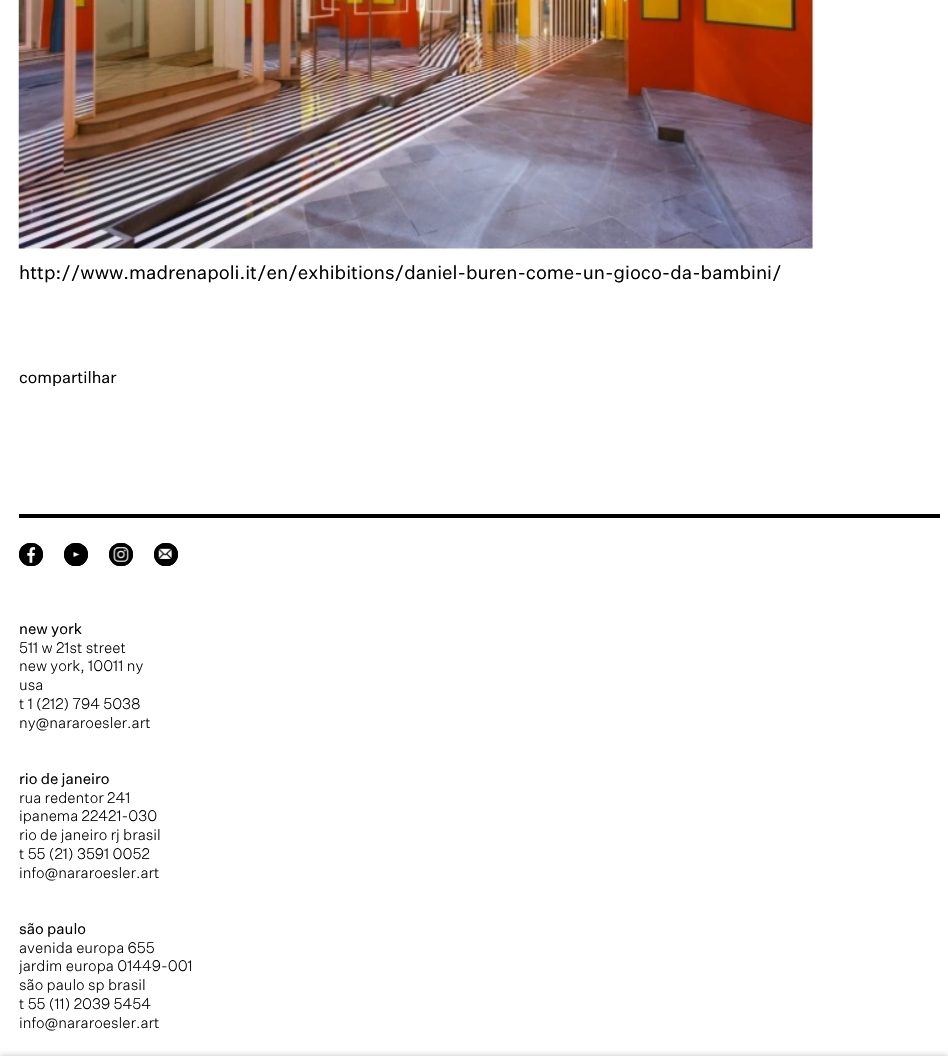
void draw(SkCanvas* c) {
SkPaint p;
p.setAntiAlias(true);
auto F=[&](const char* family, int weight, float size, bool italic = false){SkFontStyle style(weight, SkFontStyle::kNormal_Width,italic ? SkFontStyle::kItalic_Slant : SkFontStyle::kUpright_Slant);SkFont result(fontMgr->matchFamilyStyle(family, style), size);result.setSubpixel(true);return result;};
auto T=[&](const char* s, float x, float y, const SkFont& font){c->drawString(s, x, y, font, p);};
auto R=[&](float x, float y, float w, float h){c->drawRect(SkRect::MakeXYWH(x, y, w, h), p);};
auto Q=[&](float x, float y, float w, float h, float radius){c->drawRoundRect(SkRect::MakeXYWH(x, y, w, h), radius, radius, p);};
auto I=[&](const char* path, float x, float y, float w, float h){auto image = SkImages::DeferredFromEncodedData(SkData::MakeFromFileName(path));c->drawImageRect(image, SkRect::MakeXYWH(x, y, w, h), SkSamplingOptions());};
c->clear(0xffffffff);
I("1.png",18,0,797,251);
auto f1 = F("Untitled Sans",400,18.75);
p.setColor(0xff000000);
T("http://www.madrenapoli.it/en/exhibitions/daniel-buren-come-un-gioco-da-bambini/",19,279,f1);
auto f2 = F("Untitled Sans",400,16.25);
T("compartilhar",19,383,f2);
R(19,514,921,4);
Q(19,543,24,23,11.5);
I("2.png",27,547,9,16);
p.setStroke(true);
p.setStrokeWidth(3);
c->drawRoundRect(SkRect::MakeXYWH(20.5,544.5,21,20),10,10,p);
p.setStroke(false);
Q(64,543,24,23,11.5);
I("3.png",73,552,7,5);
p.setStroke(true);
c->drawRoundRect(SkRect::MakeXYWH(65.5,544.5,21,20),10,10,p);
p.setStroke(false);
Q(109,543,24,23,11.5);
I("4.png",113,547,16,15);
p.setStroke(true);
c->drawRoundRect(SkRect::MakeXYWH(110.5,544.5,21,20),10,10,p);
p.setStroke(false);
Q(154,543,24,23,11.5);
I("5.png",158,548,14,11);
p.setStroke(true);
c->drawRoundRect(SkRect::MakeXYWH(155.5,544.5,21,20),10,10,p);
auto f3 = F("Untitled Sans",400,15);
p.setStroke(false);
T("new york",19,634,f3);
auto f4 = F("Untitled Sans",300,15);
T("511 w 21st street",19,653,f4);
T("new york, 10011 ny",19,671,f4);
T("usa",19,690,f4);
T("t 1 (212) 794 5038",19,709,f4);
T("ny@nararoesler.art",19,728,f4);
T("rio de janeiro",19,784,f3);
T("rua redentor 241",19,803,f4);
T("ipanema 22421-030",19,821,f4);
T("rio de janeiro rj brasil",19,840,f4);
T("t 55 (21) 3591 0052",19,859,f4);
T("info@nararoesler.art",19,878,f4);
T("são paulo",19,934,f3);
T("avenida europa 655",19,953,f4);
T("jardim europa 01449-001",19,971,f4);
T("são paulo sp brasil",19,990,f4);
T("t 55 (11) 2039 5454",19,1009,f4);
T("info@nararoesler.art",19,1028,f4);
p.setColor(0x3b000000);
p.setMaskFilter(SkMaskFilter::MakeBlur(kNormal_SkBlurStyle, 3));
c->drawRect(SkRect::MakeXYWH(0,1056,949,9),p);
p.setMaskFilter(nullptr);
}
